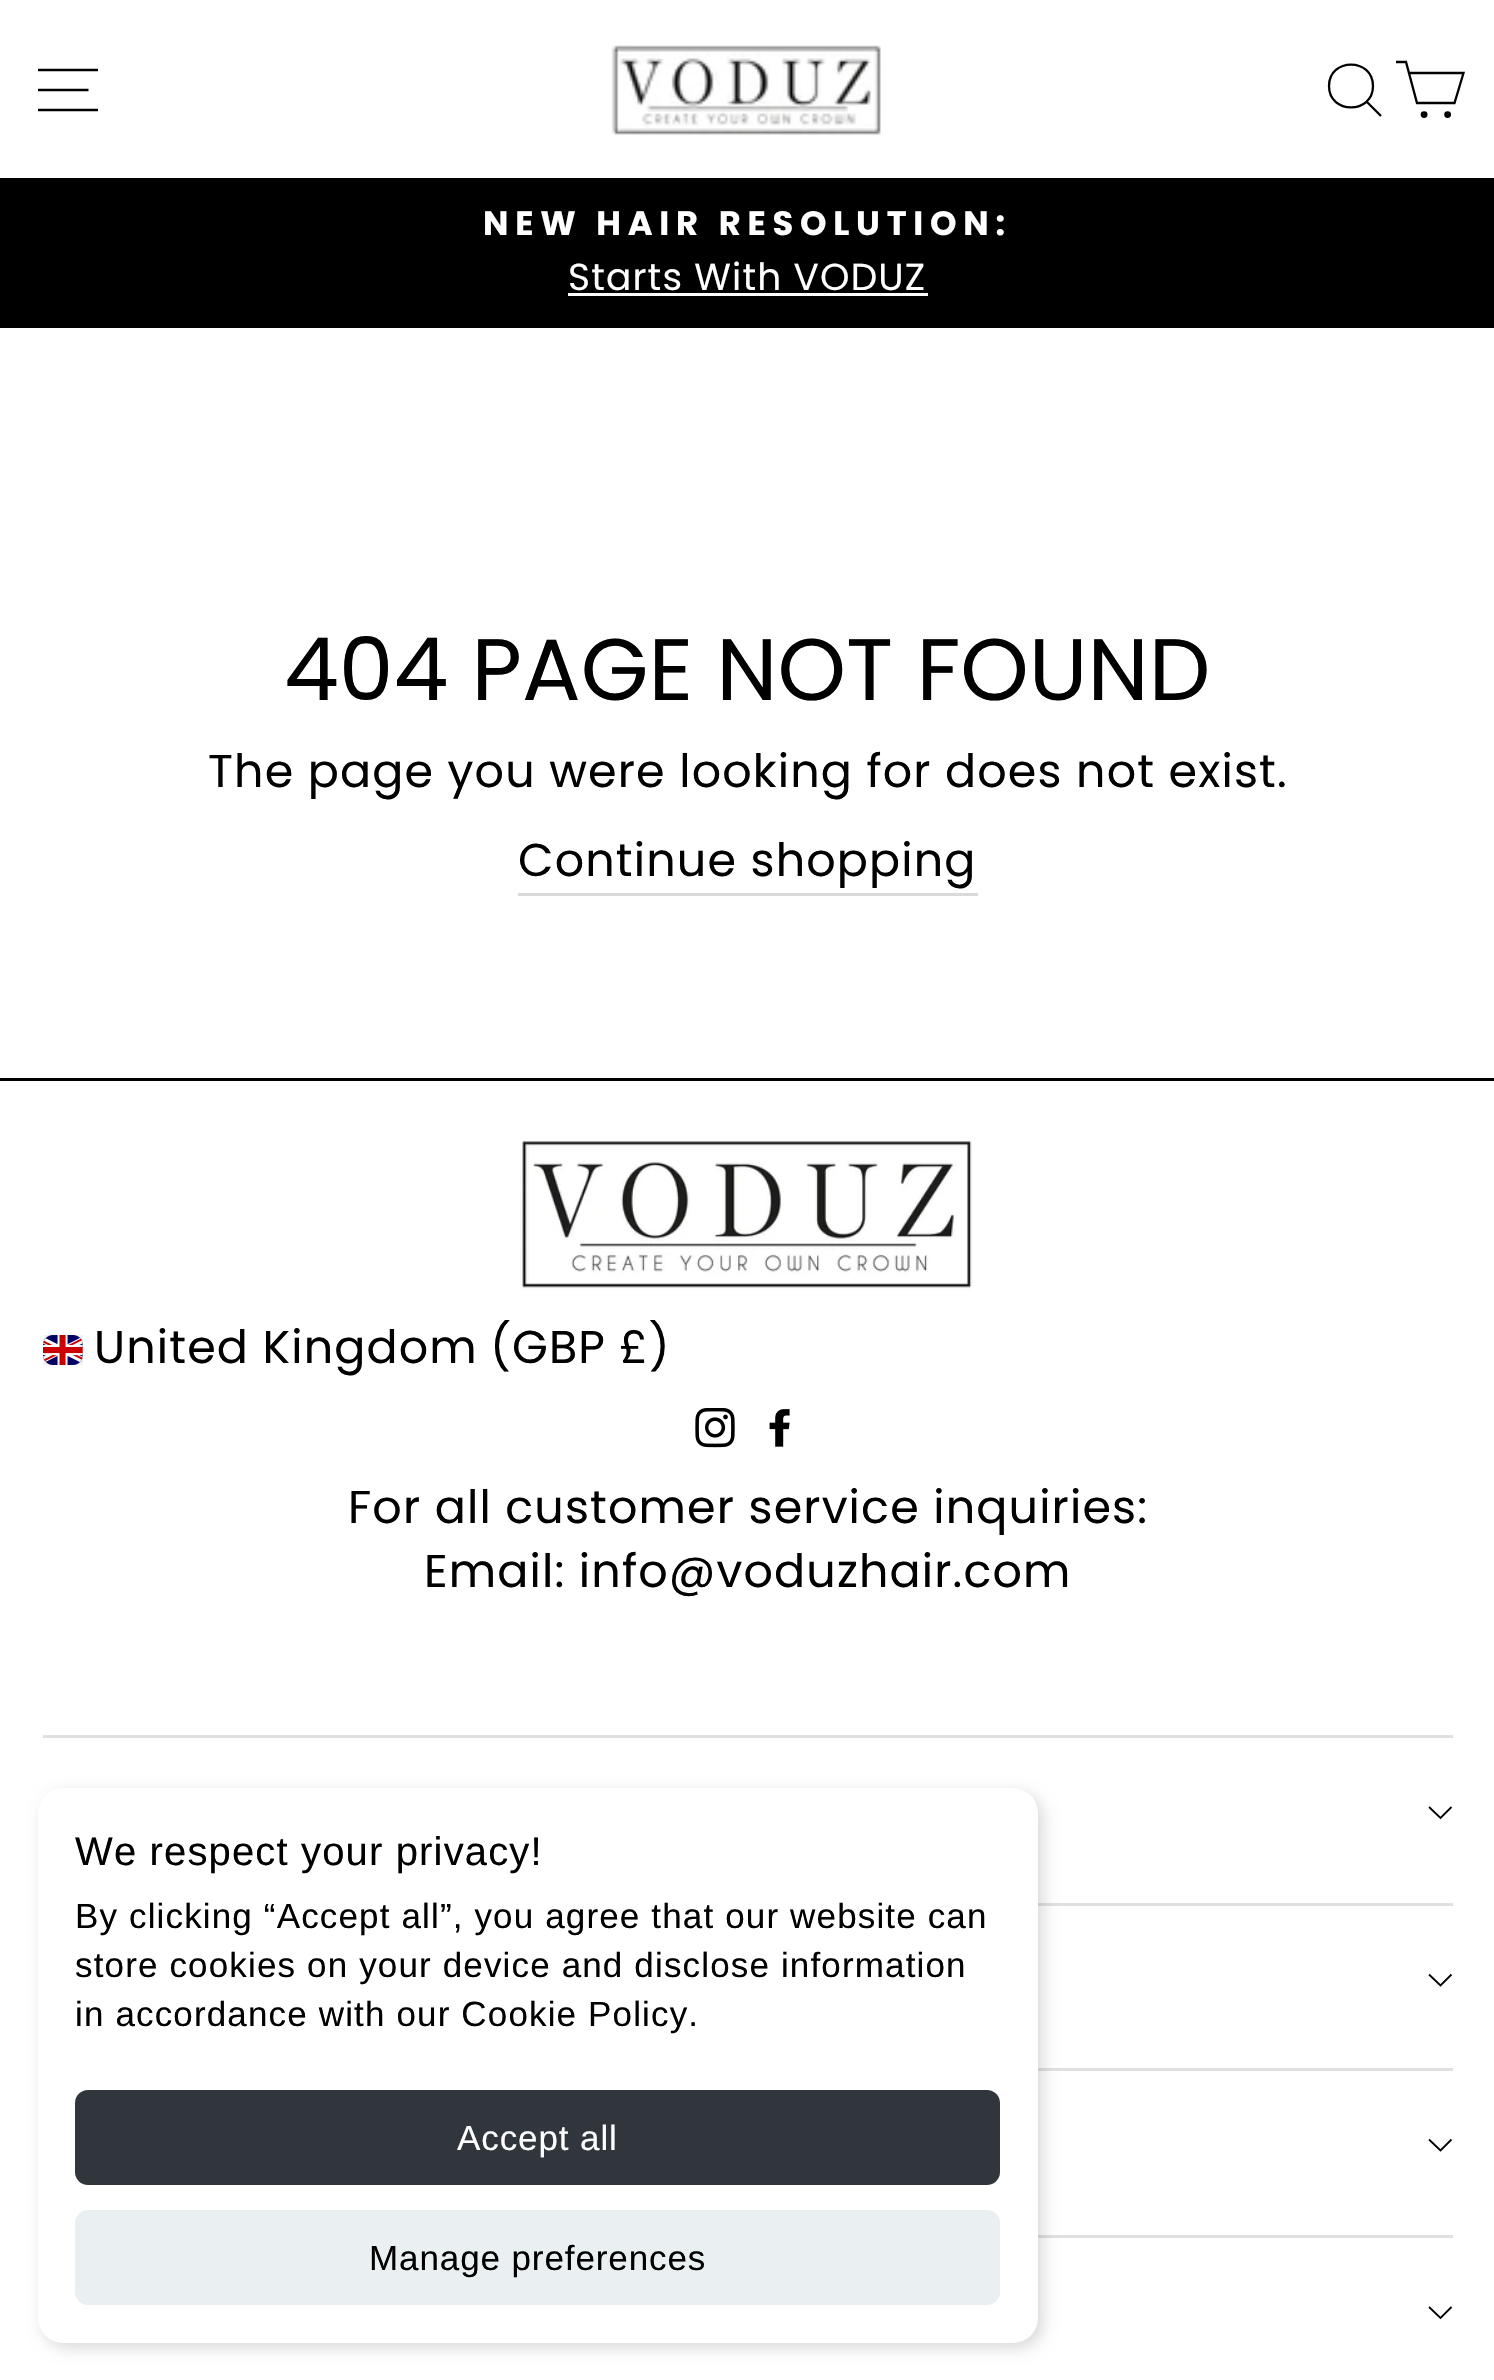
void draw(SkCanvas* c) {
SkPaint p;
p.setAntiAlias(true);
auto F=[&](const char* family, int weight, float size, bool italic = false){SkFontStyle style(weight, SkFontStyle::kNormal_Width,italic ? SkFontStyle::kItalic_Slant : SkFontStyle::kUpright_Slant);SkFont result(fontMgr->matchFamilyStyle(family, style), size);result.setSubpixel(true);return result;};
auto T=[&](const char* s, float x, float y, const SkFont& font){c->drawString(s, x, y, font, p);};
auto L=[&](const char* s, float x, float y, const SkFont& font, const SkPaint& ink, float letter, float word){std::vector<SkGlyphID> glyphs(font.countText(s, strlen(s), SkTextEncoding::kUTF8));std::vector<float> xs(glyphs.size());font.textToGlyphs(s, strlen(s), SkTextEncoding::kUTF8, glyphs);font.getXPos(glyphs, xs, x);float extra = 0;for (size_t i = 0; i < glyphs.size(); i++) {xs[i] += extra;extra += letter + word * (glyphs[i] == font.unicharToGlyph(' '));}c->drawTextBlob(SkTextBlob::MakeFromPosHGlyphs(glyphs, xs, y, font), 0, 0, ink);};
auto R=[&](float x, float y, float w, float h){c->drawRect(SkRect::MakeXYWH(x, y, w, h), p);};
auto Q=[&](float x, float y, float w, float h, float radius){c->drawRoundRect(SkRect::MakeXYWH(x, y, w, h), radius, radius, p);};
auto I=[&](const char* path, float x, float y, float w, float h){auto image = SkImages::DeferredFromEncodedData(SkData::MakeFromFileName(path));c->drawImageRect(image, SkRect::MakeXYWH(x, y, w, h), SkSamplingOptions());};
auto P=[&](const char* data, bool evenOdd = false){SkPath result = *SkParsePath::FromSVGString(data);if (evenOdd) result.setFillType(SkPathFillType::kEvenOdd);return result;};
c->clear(0xffffffff);
p.setColor(0xff000000);
R(0,178,1494,150);
p.setColor(0x33000000);
p.setMaskFilter(SkMaskFilter::MakeBlur(kNormal_SkBlurStyle, 1));
c->drawRect(SkRect::MakeXYWH(0,0,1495,178),p);
p.setMaskFilter(nullptr);
p.setColor(0xffffffff);
R(0,0,1494,178);
p.setStroke(true);
p.setStrokeWidth(2.3);
p.setColor(0xff000000);
c->drawPath(P("M38 70h60m-60 20h50.5m-50.5 20h60"),p);
I("1.png",611,45,270,90);
c->drawPath(P("M1373 86c0 28.5-44 28.5-44 0c0-28.5 44-28.5 44 0zm8 30l-14.5-14.5"),p);
c->drawPath(P("M1409 73h54.5l-9 30h-37.5l-11-41h-10"),p);
p.setStroke(false);
c->drawCircle(1424.1,114.6,2.3,p);
p.setStroke(true);
c->drawCircle(1424.1,114.6,2.3,p);
p.setStroke(false);
c->drawCircle(1447.6,114.6,2.3,p);
p.setStroke(true);
c->drawCircle(1447.6,114.6,2.3,p);
auto f1 = F("Poppins",700,33.75);
p.setStroke(false);
p.setColor(0xffffffff);
L("NEW HAIR RESOLUTION:",483,235,f1,p,6.75,0);
auto f2 = F("Poppins",400,37.5);
L("Starts With VODUZ",568,290,f2,p,1.15,0);
R(568,293,360,3);
auto f3 = F("Poppins",400,87.1);
p.setColor(0xff000000);
T("404 PAGE NOT FOUND",284,700,f3);
auto f4 = F("Poppins",400,46);
L("The page you were looking for does not exist.",208,787,f4,p,1.15,0);
p.setColor(0xffd9d9d9);
R(518,893,460,3);
p.setColor(0xff000000);
L("Continue shopping",518,876,f4,p,1.15,0);
R(0,1078,1494,3);
I("2.png",520,1141,452,149);
I("3.png",43,1335,40,30);
p.setStroke(true);
p.setStrokeWidth(3);
p.setColor(0x0d000000);
c->drawRect(SkRect::MakeXYWH(44.5,1336.5,37,27),p);
p.setStroke(false);
p.setColor(0xff000000);
L("United Kingdom",94,1363,f4,p,1.15,0);
L("(GBP",490,1363,f4,p,1.15,0);
L("£)",619,1363,f4,p,1.15,0);
I("4.png",695,1408,40,40);
I("5.png",769,1409,21,38);
L("For all customer service inquiries:",348,1523,f4,p,1.15,0);
L("Email: info@voduzhair.com",424,1587,f4,p,1.15,0);
p.setColor(0xffe0e0e0);
R(43,1735,1410,3);
p.setStroke(true);
p.setStrokeWidth(1.8);
p.setColor(0xff000000);
c->drawPath(P("M1429 1807l11.5 11l11-11"),p);
p.setStroke(false);
p.setColor(0xffe0e0e0);
R(1038,1903,415,3);
p.setStroke(true);
p.setColor(0xff000000);
c->drawPath(P("M1429 1974.5l11.5 11l11-11"),p);
p.setStroke(false);
p.setColor(0xffe0e0e0);
R(1038,2068,415,3);
p.setStroke(true);
p.setColor(0xff000000);
c->drawPath(P("M1429 2139.5l11.5 11l11-11"),p);
p.setStroke(false);
p.setColor(0xffe0e0e0);
R(1038,2235,415,3);
p.setStroke(true);
p.setColor(0xff000000);
c->drawPath(P("M1429 2307l11.5 11l11-11"),p);
p.setStroke(false);
p.setColor(0x26000000);
p.setMaskFilter(SkMaskFilter::MakeBlur(kNormal_SkBlurStyle, 7.5));
c->drawRoundRect(SkRect::MakeXYWH(43,1793,1000,555),25,25,p);
p.setMaskFilter(nullptr);
p.setColor(0xffffffff);
Q(38,1788,1000,555,25);
auto f5 = F("Liberation Sans",400,40);
p.setColor(0xff000000);
L("We respect your privacy!",75,1865,f5,p,1.15,0);
auto f6 = F("Liberation Sans",400,35);
L("By clicking “Accept all”, you agree that our website can",75,1928,f6,p,1.15,0);
L("store cookies on your device and disclose information",75,1977,f6,p,1.15,0);
L("in accordance with our Cookie Policy.",75,2026,f6,p,1.15,0);
p.setColor(0xff30363c);
Q(75,2090,925,95,13);
p.setColor(0xffffffff);
L("Accept all",457,2150,f6,p,.9,0);
p.setColor(0xffeaeff2);
Q(75,2210,925,95,13);
p.setColor(0xff000000);
L("Manage preferences",369,2270,f6,p,.9,0);
}
